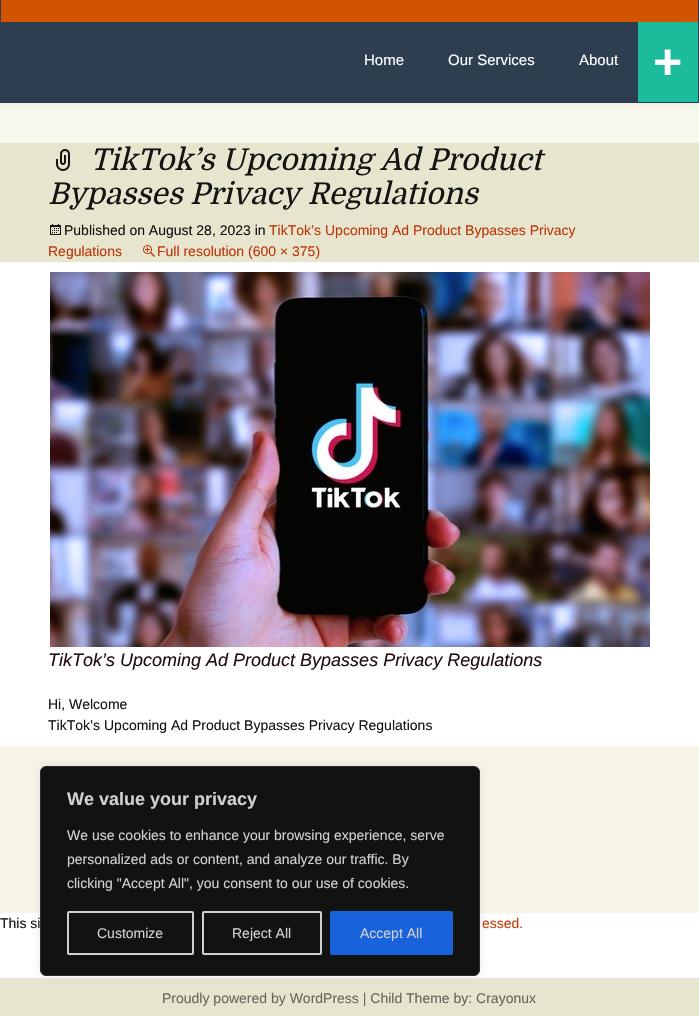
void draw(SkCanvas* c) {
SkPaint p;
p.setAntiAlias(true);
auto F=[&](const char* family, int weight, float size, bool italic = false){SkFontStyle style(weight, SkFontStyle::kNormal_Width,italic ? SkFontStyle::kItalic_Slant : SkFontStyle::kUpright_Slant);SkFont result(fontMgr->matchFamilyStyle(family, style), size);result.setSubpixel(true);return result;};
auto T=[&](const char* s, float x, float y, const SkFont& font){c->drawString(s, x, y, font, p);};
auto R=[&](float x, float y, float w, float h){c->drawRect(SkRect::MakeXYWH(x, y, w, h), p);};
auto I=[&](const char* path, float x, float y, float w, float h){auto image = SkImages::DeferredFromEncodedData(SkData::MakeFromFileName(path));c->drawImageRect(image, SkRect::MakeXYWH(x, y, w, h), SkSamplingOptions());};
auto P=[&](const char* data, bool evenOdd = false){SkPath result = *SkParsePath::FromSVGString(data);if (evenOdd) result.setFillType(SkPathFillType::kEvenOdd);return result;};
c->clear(0xffffffff);
p.setColor(0xff2c3e50);
R(0,0,699,103);
p.setColor(0xfff9f8ee);
R(0,103,699,40);
c->save();
c->clipPath(P("M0 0h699v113h-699zm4-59h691c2 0 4 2 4 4v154c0 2-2 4-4 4h-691c-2 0-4-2-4-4v-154c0-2 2-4 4-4z",true),true);
p.setColor(0x12000000);
p.setMaskFilter(SkMaskFilter::MakeBlur(kNormal_SkBlurStyle, 2.5));
c->drawRoundRect(SkRect::MakeXYWH(0,-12,699,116),4,4,p);
p.setMaskFilter(nullptr);
c->restore();
p.setColor(0xffd35400);
R(1,0,697,22);
auto f1 = F("Liberation Sans",400,15);
p.setColor(0xffffffff);
T("Home",364,65,f1);
T("Our Services",448,65,f1);
T("About",579,65,f1);
p.setColor(0xff1abc9c);
R(638,22,60,80);
auto f2 = F("Liberation Sans",700,50);
p.setColor(0xffffffff);
T("+",653,79,f2);
p.setColor(0xffe8e5ce);
R(0,143,699,119);
I("1.png",56,149,14,22);
auto f3 = F("Domine",400,30,true);
p.setColor(0xff141412);
T("TikTok’s Upcoming Ad Product",90,170,f3);
T("Bypasses Privacy Regulations",48,204,f3);
I("2.png",50,224,11,11);
auto f4 = F("Liberation Sans",400,14);
T("Published on August 28, 2023 in",64,235,f4);
p.setColor(0xffbc360a);
T("TikTok’s Upcoming Ad Product Bypasses Privacy",269,235,f4);
T("Regulations",48,256,f4);
I("3.png",143,245,12,12);
T("Full resolution (600 × 375)",157,256,f4);
I("4.png",50,272,600,375);
auto f5 = F("Liberation Sans",400,18,true);
p.setColor(0xff220e10);
T("TikTok’s Upcoming Ad Product Bypasses Privacy Regulations",48,666,f5);
p.setColor(0xff141412);
T("Hi, Welcome",48,709,f4);
T("TikTok’s Upcoming Ad Product Bypasses Privacy Regulations",48,730,f4);
p.setColor(0xfff7f5e7);
R(0,746,699,167);
p.setColor(0xff141412);
T("This si",0,928,f4);
p.setColor(0xffca3c08);
T("essed.",482,928,f4);
p.setColor(0xffe8e5ce);
R(0,978,699,38);
p.setColor(0x4dacabab);
p.setMaskFilter(SkMaskFilter::MakeBlur(kNormal_SkBlurStyle, 5));
c->drawRoundRect(SkRect::MakeXYWH(40,765,440,210),6,6,p);
p.setMaskFilter(nullptr);
p.setColor(0xff121212);
c->drawRoundRect(SkRect::MakeXYWH(40.5,766.5,439,209),5.5,5.5,p);
p.setStroke(true);
p.setStrokeWidth(1);
p.setColor(0xff2a2a2a);
c->drawRoundRect(SkRect::MakeXYWH(40.5,766.5,439,209),5.5,5.5,p);
auto f6 = F("Liberation Sans",700,18);
p.setStroke(false);
p.setColor(0xffd0d0d0);
T("We value your privacy",67,805,f6);
T("We use cookies to enhance your browsing experience, serve",67,840,f4);
T("personalized ads or content, and analyze our traffic. By",67,864,f4);
T("clicking \"Accept All\", you consent to our use of cookies.",67,888,f4);
p.setStroke(true);
p.setStrokeWidth(2);
c->drawRoundRect(SkRect::MakeXYWH(68,912,125,42),1,1,p);
p.setStroke(false);
T("Customize",97,938,f4);
p.setStroke(true);
c->drawRoundRect(SkRect::MakeXYWH(203,912,118,42),1,1,p);
p.setStroke(false);
T("Reject All",232,938,f4);
p.setColor(0xff1863dc);
c->drawRoundRect(SkRect::MakeXYWH(331,912,121,42),1,1,p);
p.setStroke(true);
c->drawRoundRect(SkRect::MakeXYWH(331,912,121,42),1,1,p);
p.setStroke(false);
p.setColor(0xffd0d0d0);
T("Accept All",360,938,f4);
p.setColor(0xff686758);
T("Proudly powered by WordPress | Child Theme by: Crayonux",162,1003,f4);
}
